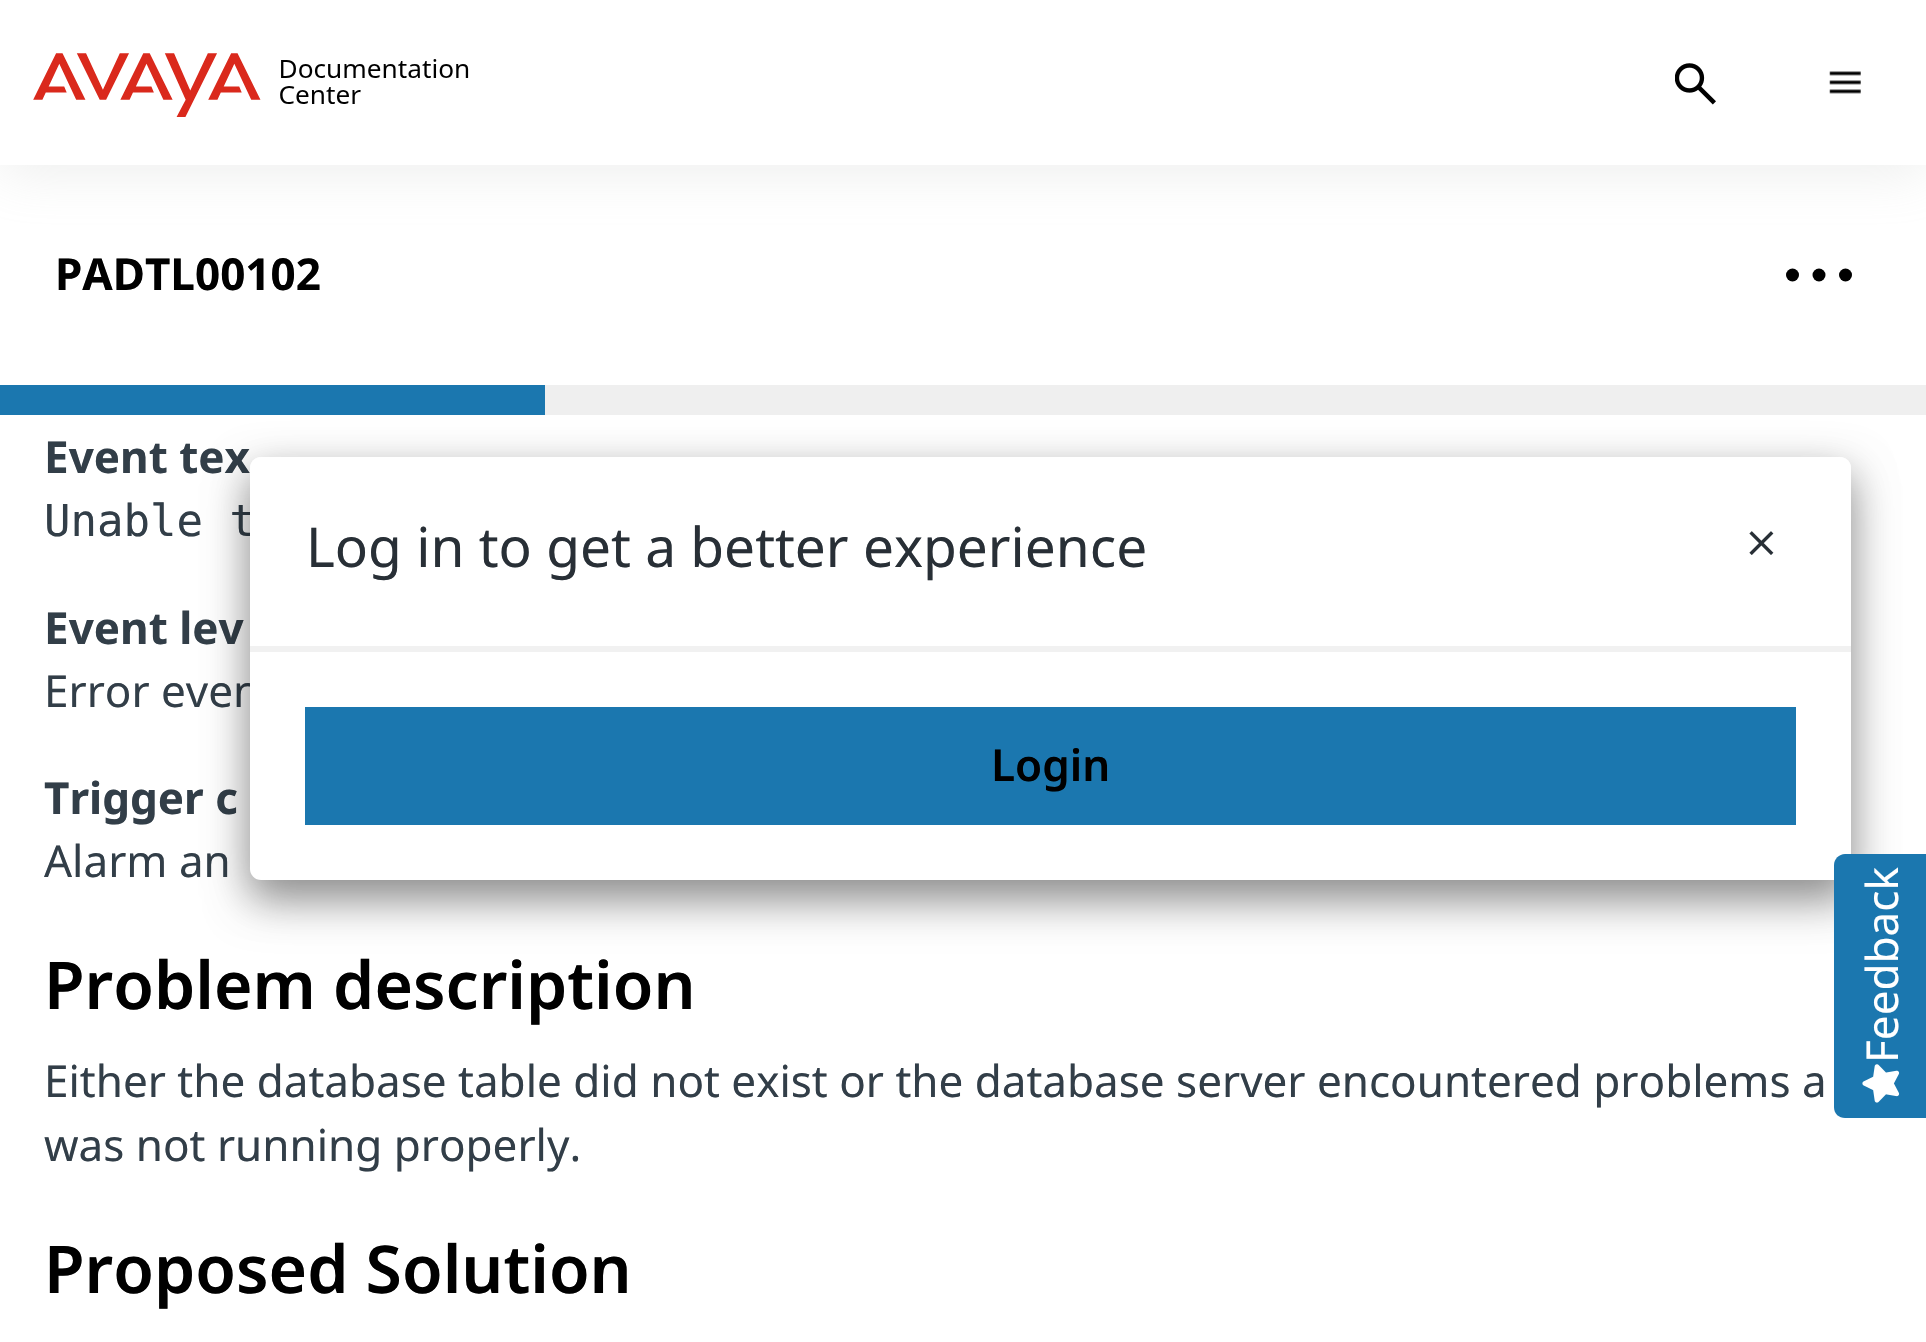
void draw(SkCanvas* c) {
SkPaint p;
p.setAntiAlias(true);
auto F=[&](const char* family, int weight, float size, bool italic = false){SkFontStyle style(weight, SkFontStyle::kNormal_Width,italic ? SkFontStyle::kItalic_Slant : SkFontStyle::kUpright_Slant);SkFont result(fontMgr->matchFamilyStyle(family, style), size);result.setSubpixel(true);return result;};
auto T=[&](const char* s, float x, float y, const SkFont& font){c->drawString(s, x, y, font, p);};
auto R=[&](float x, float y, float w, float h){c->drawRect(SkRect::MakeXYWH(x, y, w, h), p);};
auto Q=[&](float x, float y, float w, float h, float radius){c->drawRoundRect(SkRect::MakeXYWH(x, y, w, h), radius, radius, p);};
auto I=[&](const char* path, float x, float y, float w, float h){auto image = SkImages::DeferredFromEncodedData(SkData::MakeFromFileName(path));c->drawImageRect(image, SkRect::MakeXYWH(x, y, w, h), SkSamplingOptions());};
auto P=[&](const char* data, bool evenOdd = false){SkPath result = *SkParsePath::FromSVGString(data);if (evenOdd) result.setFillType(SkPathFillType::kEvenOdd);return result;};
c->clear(0xffffffff);
p.setColor(0x40b5b7b3);
p.setMaskFilter(SkMaskFilter::MakeBlur(kNormal_SkBlurStyle, 27.5));
c->drawRect(SkRect::MakeXYWH(0,6,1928,165),p);
p.setMaskFilter(nullptr);
p.setColor(0xffffffff);
R(0,0,1926,165);
I("1.png",33,53,436,64);
I("2.png",1675,63,41,42);
I("3.png",1829,71,32,23);
auto f1 = F("Noto Sans",700,44);
p.setColor(0xff000000);
T("PADTL00102",55,290,f1);
c->drawCircle(1792.5,275,6.5,p);
c->drawCircle(1819,275,6.5,p);
c->drawCircle(1845.5,275,6.5,p);
p.setColor(0xff1b77af);
R(0,385,545,30);
p.setColor(0xffefefef);
R(545,385,1381,30);
p.setColor(0xff323e48);
T("Event tex",44,473,f1);
auto f2 = F("DejaVu Sans Mono",400,44);
T("Unable t",44,536,f2);
T("Event lev",44,644,f1);
auto f3 = F("Noto Sans",400,44);
T("Error even",44,707,f3);
T("Trigger c",44,814,f1);
T("Alarm an",44,877,f3);
auto f4 = F("Noto Sans",600,66);
p.setColor(0xff000000);
T("Problem description",44,1009,f4);
p.setColor(0xff323e48);
T("Either the database table did not exist or the database server encountered problems a",44,1097,f3);
T("was not running properly.",44,1161,f3);
p.setColor(0xff000000);
T("Proposed Solution",44,1293,f4);
p.setColor(0x40000000);
p.setMaskFilter(SkMaskFilter::MakeBlur(kNormal_SkBlurStyle, 20.5));
c->drawRoundRect(SkRect::MakeXYWH(250,470,1601,424),11,11,p);
p.setMaskFilter(nullptr);
p.setColor(0x45000000);
p.setMaskFilter(SkMaskFilter::MakeBlur(kNormal_SkBlurStyle, 22));
c->drawRoundRect(SkRect::MakeXYWH(250,479,1601,423),11,11,p);
p.setMaskFilter(nullptr);
p.setColor(0xffffffff);
Q(250,457,1601,423,11);
c->drawPath(P("M261 457h1579c6 0 11 5 11 11v181h-1601v-181c0-6 5-11 11-11z"),p);
p.setColor(0xfff1f1f1);
R(250,646,1601,6);
auto f5 = F("Noto Sans",400,55);
p.setColor(0xff282f36);
T("Log in to get a better experience",306,567,f5);
I("4.png",1749,531,25,24);
p.setColor(0xff1b77af);
R(305,707,1491,118);
auto f6 = F("Noto Sans",600,44);
p.setColor(0xff000000);
T("Login",991,781,f6);
p.setColor(0xff1b77af);
c->drawPath(P("M1834 1107v-242c0-6 5-11 11-11h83v264h-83c-6 0-11-4-11-11z"),p);
p.setColor(0xffffffff);
c->save();
c->rotate(-90,1898,1063);
T("Feedback",1898,1063,f3);
c->restore();
I("5.png",1862,1064,38,39);
}
